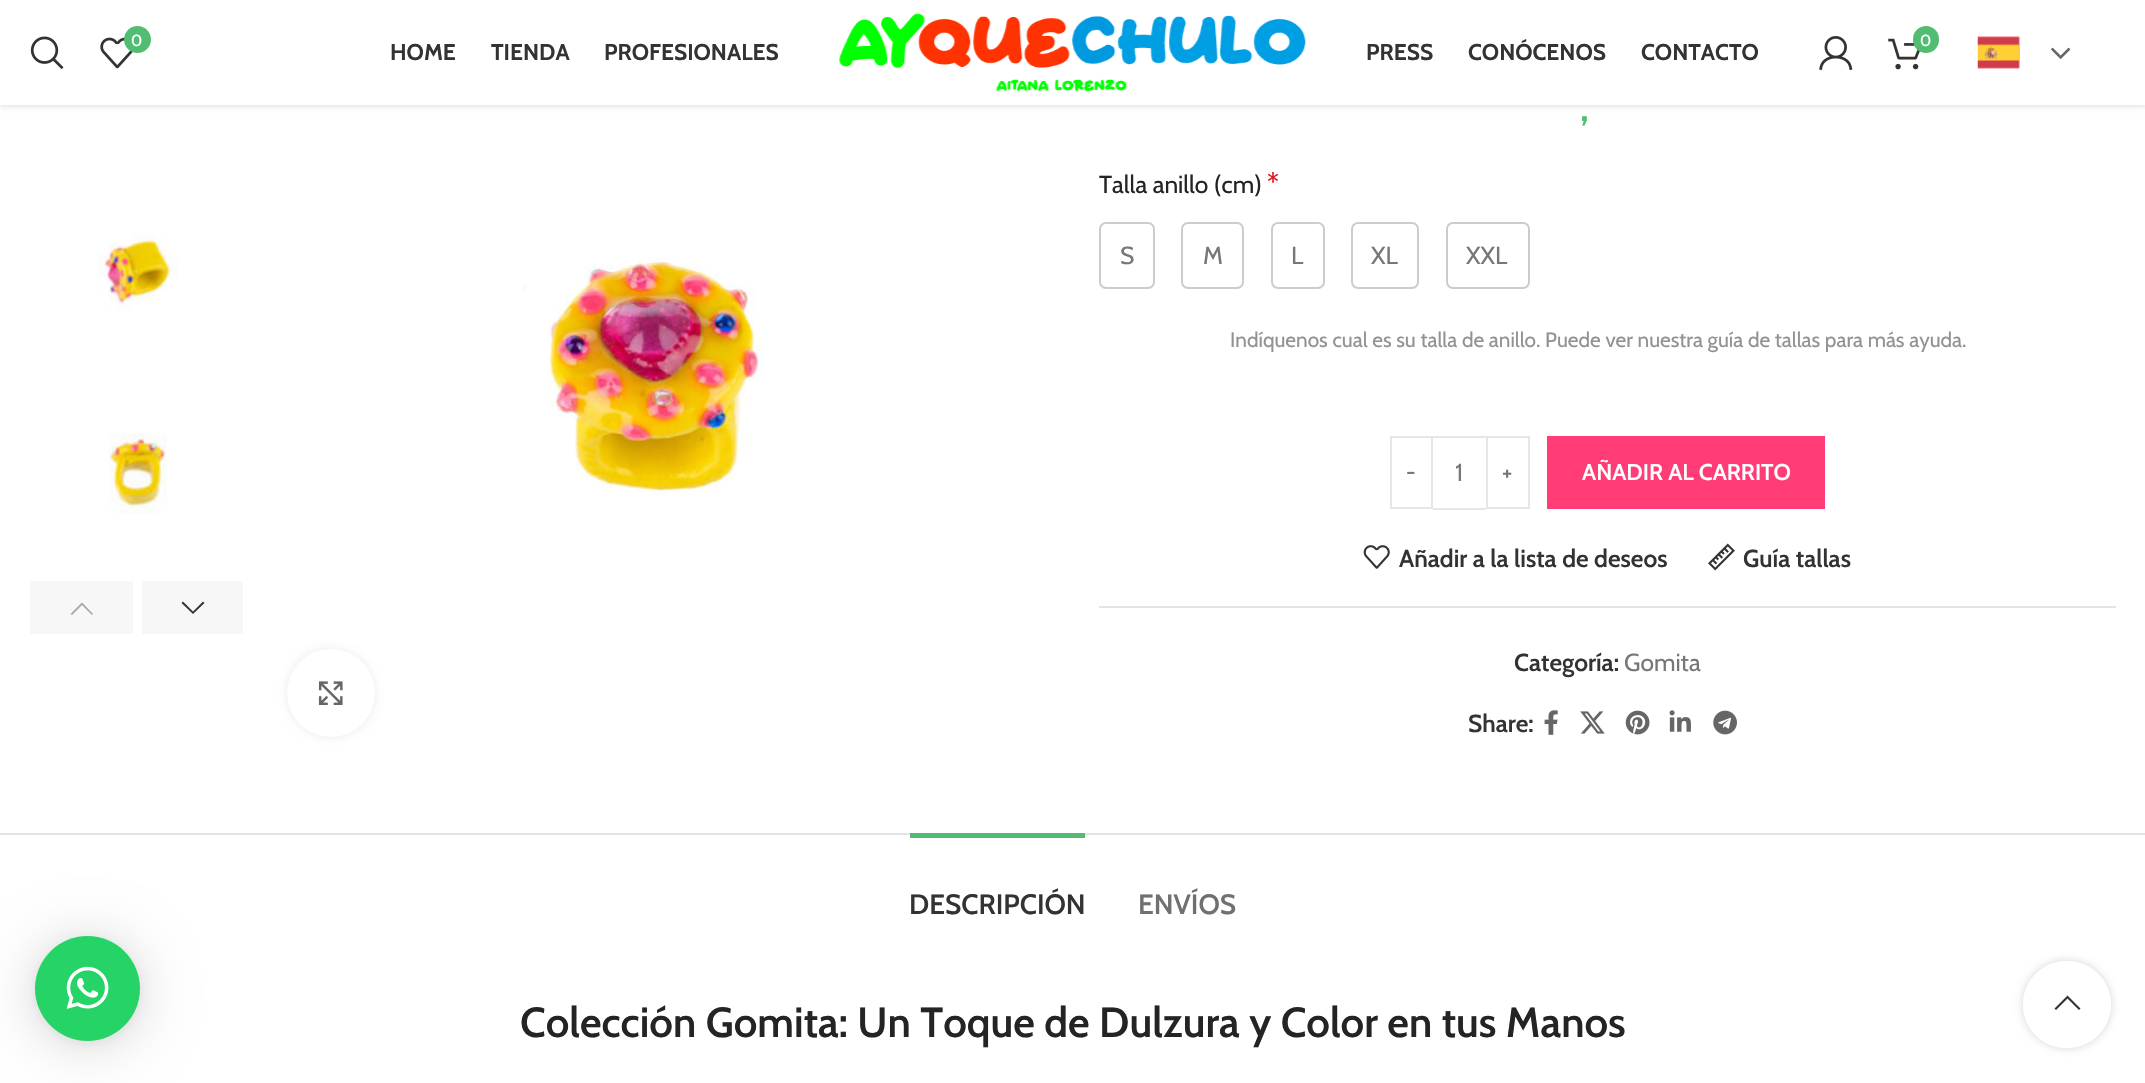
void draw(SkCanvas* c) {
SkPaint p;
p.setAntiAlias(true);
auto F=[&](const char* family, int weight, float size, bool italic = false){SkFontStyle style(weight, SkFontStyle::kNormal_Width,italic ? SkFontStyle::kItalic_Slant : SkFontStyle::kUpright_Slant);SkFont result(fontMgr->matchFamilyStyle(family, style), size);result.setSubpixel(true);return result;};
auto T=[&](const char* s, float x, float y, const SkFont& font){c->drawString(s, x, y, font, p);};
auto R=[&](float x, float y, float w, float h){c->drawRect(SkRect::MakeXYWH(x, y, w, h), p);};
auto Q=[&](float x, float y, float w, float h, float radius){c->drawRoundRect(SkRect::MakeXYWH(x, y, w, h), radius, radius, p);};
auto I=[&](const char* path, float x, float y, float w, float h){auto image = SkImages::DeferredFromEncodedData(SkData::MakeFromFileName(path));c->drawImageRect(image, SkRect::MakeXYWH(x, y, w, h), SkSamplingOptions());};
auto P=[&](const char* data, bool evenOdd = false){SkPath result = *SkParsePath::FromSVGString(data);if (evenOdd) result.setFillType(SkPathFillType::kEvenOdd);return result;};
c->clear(0xffffffff);
p.setColor(0x29000000);
p.setMaskFilter(SkMaskFilter::MakeBlur(kNormal_SkBlurStyle, 28));
c->drawRoundRect(SkRect::MakeXYWH(35,940,105,105),52.5,52.5,p);
p.setMaskFilter(nullptr);
p.setColor(0x0f000000);
p.setMaskFilter(SkMaskFilter::MakeBlur(kNormal_SkBlurStyle, 5));
c->drawRoundRect(SkRect::MakeXYWH(35,938,105,105),52.5,52.5,p);
p.setMaskFilter(nullptr);
p.setColor(0xff25d366);
c->drawCircle(87.5,988.5,52.5,p);
I("1.png",66,966,43,43);
p.setColor(0x1a000000);
p.setMaskFilter(SkMaskFilter::MakeBlur(kNormal_SkBlurStyle, 2.5));
c->drawRect(SkRect::MakeXYWH(0,2,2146,105),p);
p.setMaskFilter(nullptr);
p.setColor(0xffffffff);
R(0,0,2145,105);
I("2.png",30,36,34,34);
I("3.png",100,37,33,32);
p.setColor(0xff52bd72);
c->drawCircle(137.5,39.5,13.5,p);
auto f1 = F("Cabin",400,16);
p.setColor(0xffffffff);
T("0",131,46,f1);
auto f2 = F("Cabin",700,22.75);
p.setColor(0xff333333);
T("HOME",390,60,f2);
T("TIENDA",491,60,f2);
T("PROFESIONALES",604,60,f2);
I("4.png",839,13,467,79);
T("PRESS",1366,60,f2);
T("CONÓCENOS",1468,60,f2);
T("CONTACTO",1641,60,f2);
I("5.png",1819,36,34,34);
I("6.png",1888,38,32,32);
p.setColor(0xff52bd72);
Q(1913,26,26,27,13);
p.setColor(0xffffffff);
T("0",1920,46,f1);
I("7.png",1977,36,43,33);
I("8.png",2051,47,19,12);
I("9.png",98,233,80,79);
I("10.png",109,433,58,81);
p.setColor(0xfff7f7f7);
R(30,581,103,53);
p.setColor(0xffa5a5a5);
c->drawPath(P("M92 615l1-1l-11-11.5l-11.5 11.5l1.5 1l10-10z"),p);
p.setColor(0xfff7f7f7);
R(142,581,101,53);
p.setColor(0xff333333);
c->drawPath(P("M203 601.5l-10 10l-10-10l-1.5 1.5l11.5 11l11.5-11z"),p);
I("11.png",523,257,241,240);
p.setColor(0x14000000);
p.setMaskFilter(SkMaskFilter::MakeBlur(kNormal_SkBlurStyle, 4.5));
c->drawRoundRect(SkRect::MakeXYWH(287,649,88,88),44,44,p);
p.setMaskFilter(nullptr);
p.setColor(0xffffffff);
c->drawCircle(331,693,44,p);
I("12.png",318,681,25,24);
auto f3 = F("Cabin",600,38);
p.setColor(0xff52bd72);
T(",",1580,121,f3);
auto f4 = F("Cabin",400,24.5);
p.setColor(0xff242424);
T("Talla anillo (cm)",1099,193,f4);
auto f5 = F("Cabin",400,28);
p.setColor(0xffe01020);
T("*",1267,193,f5);
p.setStroke(true);
p.setStrokeWidth(2);
p.setColor(0xffcccccc);
c->drawRoundRect(SkRect::MakeXYWH(1100,223,54,65),6,6,p);
p.setStroke(false);
p.setColor(0xff777777);
T("S",1120,264,f4);
p.setStroke(true);
p.setColor(0xffcccccc);
c->drawRoundRect(SkRect::MakeXYWH(1182,223,61,65),6,6,p);
p.setStroke(false);
p.setColor(0xff777777);
T("M",1203,264,f4);
p.setStroke(true);
p.setColor(0xffcccccc);
c->drawRoundRect(SkRect::MakeXYWH(1272,223,52,65),6,6,p);
p.setStroke(false);
p.setColor(0xff777777);
T("L",1291,264,f4);
p.setStroke(true);
p.setColor(0xffcccccc);
c->drawRoundRect(SkRect::MakeXYWH(1352,223,66,65),6,6,p);
p.setStroke(false);
p.setColor(0xff777777);
T("XL",1371,264,f4);
p.setStroke(true);
p.setColor(0xffcccccc);
c->drawRoundRect(SkRect::MakeXYWH(1447,223,82,65),6,6,p);
p.setStroke(false);
p.setColor(0xff777777);
T("XXL",1466,264,f4);
auto f6 = F("Cabin",400,20.8);
p.setColor(0xff929292);
T("Indíquenos cual es su talla de anillo. Puede ver nuestra guía de tallas para más ayuda.",1230,347,f6);
p.setStroke(true);
p.setColor(0xffe6e6e6);
c->drawRect(SkRect::MakeXYWH(1391,437,41,71),p);
auto f7 = F("Cabin",600,22.75);
p.setStroke(false);
p.setColor(0xff777777);
T("-",1406,480,f7);
p.setColor(0xffe6e6e6);
R(1433,436,53,2);
R(1433,508,53,2);
p.setColor(0xff777777);
T("1",1455,481,f4);
p.setStroke(true);
p.setColor(0xffe6e6e6);
c->drawRect(SkRect::MakeXYWH(1487,437,42,71),p);
p.setStroke(false);
p.setColor(0xff777777);
T("+",1502,480,f7);
p.setColor(0xffff3c76);
R(1547,436,278,73);
p.setColor(0xffffffff);
T("AÑADIR AL CARRITO",1582,480,f7);
I("13.png",1363,545,27,24);
auto f8 = F("Cabin",600,24.5);
p.setColor(0xff333333);
T("Añadir a la lista de deseos",1399,567,f8);
I("14.png",1708,543,27,28);
T("Guía tallas",1743,567,f8);
p.setColor(0xffe4e4e4);
R(1099,606,1017,2);
p.setColor(0xff333333);
T("Categoría:",1514,671,f8);
p.setColor(0xff777777);
T("Gomita",1624,671,f4);
p.setColor(0xff333333);
T("Share:",1468,732,f8);
I("15.png",1544,710,14,25);
I("16.png",1580,711,25,23);
I("17.png",1625,710,25,25);
I("18.png",1669,710,22,22);
I("19.png",1713,710,24,25);
p.setColor(0xffe4e4e4);
R(0,833,2145,2);
p.setColor(0xff52bd72);
R(910,833,175,5);
auto f9 = F("Cabin",600,28);
p.setColor(0xff333333);
T("DESCRIPCIÓN",909,914,f9);
p.setColor(0xff707070);
T("ENVÍOS",1138,914,f9);
auto f10 = F("Cabin",600,42);
p.setColor(0xff242424);
T("Colección Gomita: Un Toque de Dulzura y Color en tus Manos",520,1037,f10);
c->save();
c->clipPath(P("M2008 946h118v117h-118zm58.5 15h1c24 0 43.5 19.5 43.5 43.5c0 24-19.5 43.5-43.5 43.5h-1c-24 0-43.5-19.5-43.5-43.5c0-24 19.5-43.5 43.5-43.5z",true),true);
p.setColor(0x2b000000);
p.setMaskFilter(SkMaskFilter::MakeBlur(kNormal_SkBlurStyle, 4.5));
c->drawRoundRect(SkRect::MakeXYWH(2023,961,88,87),43.5,43.5,p);
p.setMaskFilter(nullptr);
c->restore();
p.setColor(0xe6ffffff);
Q(2023,961,88,87,43.5);
p.setColor(0xff333333);
c->drawPath(P("M2079 1010l1.5-1.5l-13-13l-13 13l1.5 1.5l11.5-11.5z"),p);
}
